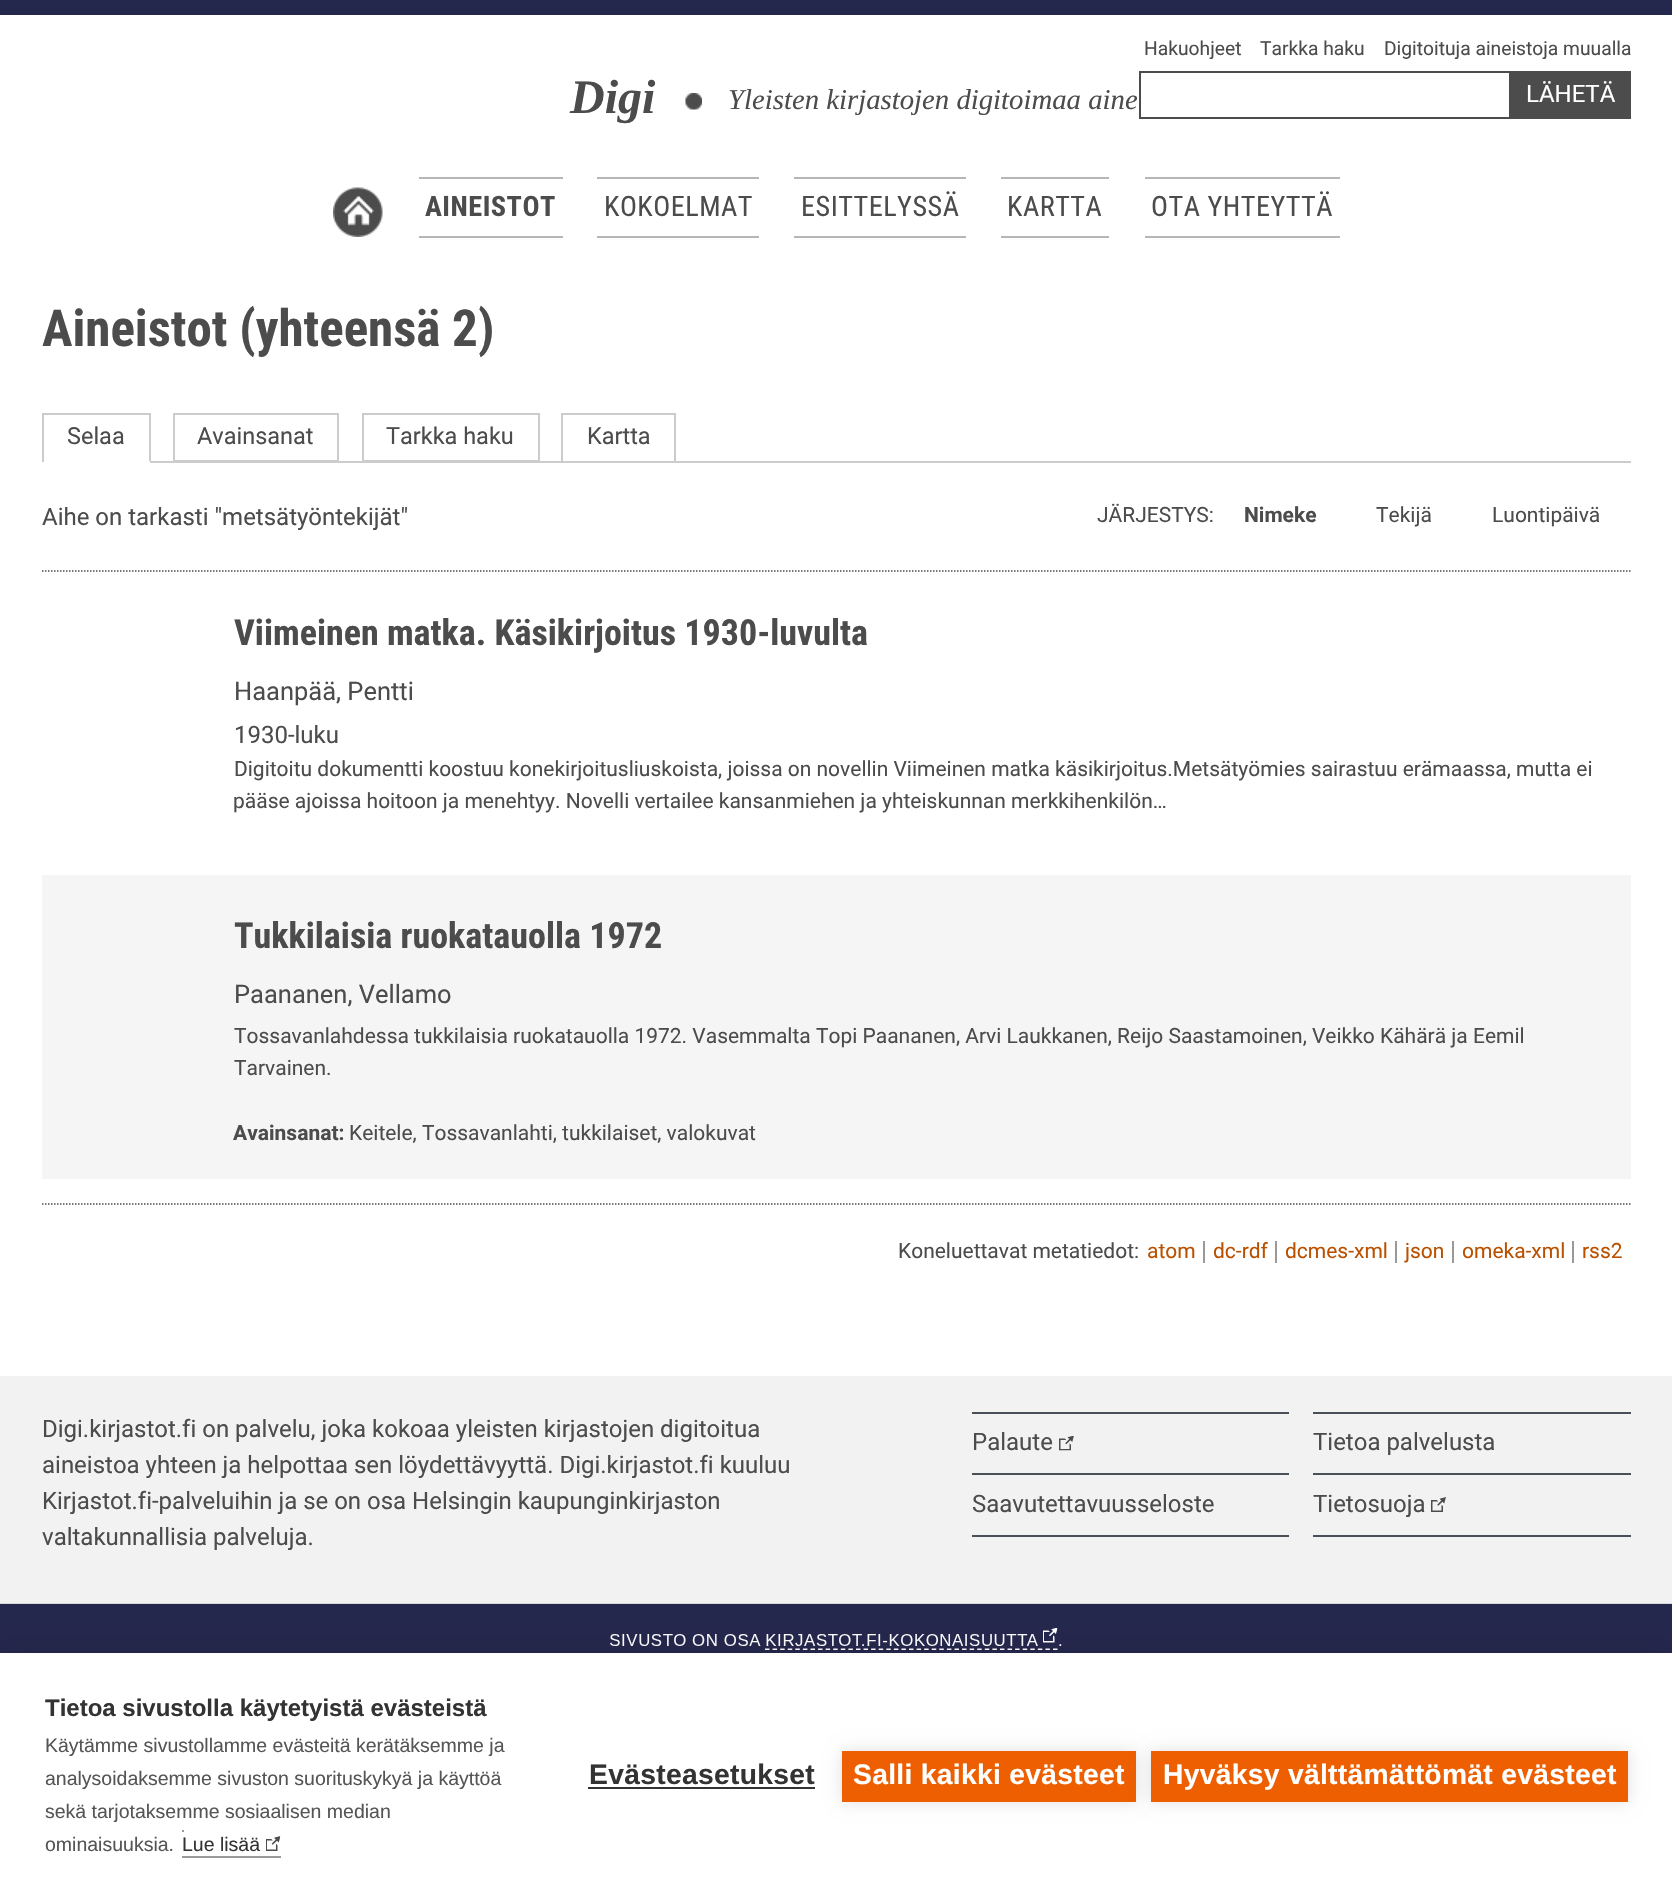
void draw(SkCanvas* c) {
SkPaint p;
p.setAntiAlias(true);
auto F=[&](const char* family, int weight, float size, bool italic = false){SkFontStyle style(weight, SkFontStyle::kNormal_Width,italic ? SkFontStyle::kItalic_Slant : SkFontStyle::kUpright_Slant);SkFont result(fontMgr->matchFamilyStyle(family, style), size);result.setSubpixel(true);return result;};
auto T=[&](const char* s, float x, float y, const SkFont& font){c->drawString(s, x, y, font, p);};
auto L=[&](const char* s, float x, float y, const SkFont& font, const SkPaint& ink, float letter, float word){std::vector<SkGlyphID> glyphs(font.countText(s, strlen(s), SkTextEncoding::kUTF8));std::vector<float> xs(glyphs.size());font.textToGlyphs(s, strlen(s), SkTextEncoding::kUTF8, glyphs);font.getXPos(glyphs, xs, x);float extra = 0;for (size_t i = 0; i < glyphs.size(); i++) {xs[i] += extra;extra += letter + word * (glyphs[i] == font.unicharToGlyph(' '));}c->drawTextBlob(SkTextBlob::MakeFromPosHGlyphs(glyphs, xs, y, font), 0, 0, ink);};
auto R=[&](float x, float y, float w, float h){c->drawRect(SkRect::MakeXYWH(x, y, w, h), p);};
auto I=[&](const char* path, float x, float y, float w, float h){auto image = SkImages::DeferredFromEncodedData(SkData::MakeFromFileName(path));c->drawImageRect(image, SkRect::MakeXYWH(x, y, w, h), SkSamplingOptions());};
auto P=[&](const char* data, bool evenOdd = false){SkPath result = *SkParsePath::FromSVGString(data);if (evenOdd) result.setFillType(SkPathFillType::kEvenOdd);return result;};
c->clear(0xffffffff);
p.setColor(0xff25284d);
R(0,0,1672,15);
auto f1 = F("Liberation Serif",700,48,true);
p.setColor(0xff4c4c4c);
T("Digi",570,113,f1);
I("1.png",685,93,17,17);
auto f2 = F("Liberation Serif",400,28.75,true);
T("Yleisten kirjastojen digitoimaa aine",728,109,f2);
auto f3 = F("Roboto",400,19.25);
T("Hakuohjeet",1144,55,f3);
T("Tarkka haku",1260,55,f3);
T("Digitoituja aineistoja muualla",1384,55,f3);
p.setStroke(true);
p.setStrokeWidth(2);
c->drawRect(SkRect::MakeXYWH(1140,72,370,46),p);
p.setStroke(false);
R(1511,71,120,48);
auto f4 = F("Roboto",400,24);
p.setColor(0xffffffff);
T("LÄHETÄ",1526,102,f4);
I("2.png",333,187,50,50);
p.setColor(0xffb8b6b4);
R(419,177,144,2);
R(419,236,144,2);
auto f5 = F("Roboto Condensed",700,28.25);
p.setColor(0xff4c4c4c);
L("AINEISTOT",425,216,f5,p,.5,0);
p.setColor(0xffb8b6b4);
R(597,177,162,2);
R(597,236,162,2);
auto f6 = F("Roboto Condensed",400,28.25);
p.setColor(0xff4c4c4c);
L("KOKOELMAT",604,216,f6,p,.5,0);
p.setColor(0xffb8b6b4);
R(794,177,172,2);
R(794,236,172,2);
p.setColor(0xff4c4c4c);
L("ESITTELYSSÄ",801,216,f6,p,.5,0);
p.setColor(0xffb8b6b4);
R(1001,177,108,2);
R(1001,236,108,2);
p.setColor(0xff4c4c4c);
L("KARTTA",1007,216,f6,p,.5,0);
p.setColor(0xffb8b6b4);
R(1145,177,195,2);
R(1145,236,195,2);
p.setColor(0xff4c4c4c);
L("OTA YHTEYTTÄ",1151,216,f6,p,.5,0);
auto f7 = F("Roboto Condensed",700,51);
T("Aineistot (yhteensä 2)",42,346,f7);
p.setColor(0xffcccccc);
R(150,461,1481,2);
R(42,413,108,2);
R(149,413,2,49);
p.setColor(0xffffffff);
R(149,461,1,1);
p.setColor(0xffcccccc);
R(42,413,2,49);
auto f8 = F("Roboto",400,23.5);
p.setColor(0xff4c4c4c);
T("Selaa",67,444,f8);
p.setStroke(true);
p.setColor(0xffcccccc);
c->drawRect(SkRect::MakeXYWH(174,414,164,47),p);
p.setStroke(false);
p.setColor(0xff4c4c4c);
T("Avainsanat",197,444,f8);
p.setStroke(true);
p.setColor(0xffcccccc);
c->drawRect(SkRect::MakeXYWH(363,414,176,47),p);
p.setStroke(false);
p.setColor(0xff4c4c4c);
T("Tarkka haku",386,444,f8);
p.setColor(0xffcccccc);
R(561,413,114,2);
R(674,413,2,48);
R(561,413,2,48);
p.setColor(0xff4c4c4c);
T("Kartta",587,444,f8);
T("Aihe on tarkasti \"metsätyöntekijät\"",42,525,f4);
auto f9 = F("Roboto",400,21);
T("JÄRJESTYS:",1097,522,f9);
auto f10 = F("Roboto",700,21);
T("Nimeke",1244,522,f10);
T("Tekijä",1376,522,f9);
T("Luontipäivä",1492,522,f9);
p.setStroke(true);
p.setStrokeWidth(1.5);
p.setPathEffect(SkDashPathEffect::Make({{1.5f,1.5f}}, 0));
c->drawPath(P("M42 571h1588.5"),p);
p.setPathEffect(nullptr);
auto f11 = F("Roboto Condensed",700,36);
p.setStroke(false);
T("Viimeinen matka. Käsikirjoitus 1930-luvulta",234,645,f11);
auto f12 = F("Roboto",400,25.5);
T("Haanpää, Pentti",234,700,f12);
T("1930-luku",234,743,f4);
T("Digitoitu dokumentti koostuu konekirjoitusliuskoista, joissa on novellin Viimeinen matka käsikirjoitus.Metsätyömies sairastuu erämaassa, mutta ei",234,776,f9);
T("pääse ajoissa hoitoon ja menehtyy. Novelli vertailee kansanmiehen ja yhteiskunnan merkkihenkilön…",233,808,f9);
p.setColor(0xfff5f5f5);
R(42,875,1589,304);
p.setColor(0xff4c4c4c);
T("Tukkilaisia ruokatauolla 1972",234,948,f11);
T("Paananen, Vellamo",234,1003,f12);
T("Tossavanlahdessa tukkilaisia ruokatauolla 1972. Vasemmalta Topi Paananen, Arvi Laukkanen, Reijo Saastamoinen, Veikko Kähärä ja Eemil",234,1043,f9);
T("Tarvainen.",234,1075,f9);
T("Avainsanat:",233,1140,f10);
T("Keitele, Tossavanlahti, tukkilaiset, valokuvat",349,1140,f9);
p.setStroke(true);
p.setPathEffect(SkDashPathEffect::Make({{1.5f,1.5f}}, 0));
c->drawPath(P("M42 1204h1588.5"),p);
p.setPathEffect(nullptr);
p.setStroke(false);
T("Koneluettavat metatiedot:",898,1258,f9);
p.setColor(0xff999999);
R(1203,1241,2,22);
p.setColor(0xffba5100);
T("atom",1147,1258,f9);
p.setColor(0xff999999);
R(1275,1241,2,22);
p.setColor(0xffba5100);
T("dc-rdf",1213,1258,f9);
p.setColor(0xff999999);
R(1395,1241,2,22);
p.setColor(0xffba5100);
T("dcmes-xml",1285,1258,f9);
p.setColor(0xff999999);
R(1452,1241,2,22);
p.setColor(0xffba5100);
T("json",1405,1258,f9);
p.setColor(0xff999999);
R(1572,1241,2,22);
p.setColor(0xffba5100);
T("omeka-xml",1462,1258,f9);
T("rss2",1582,1258,f9);
p.setColor(0xfff2f2f2);
R(0,1376,1672,228);
p.setColor(0xff4c4c4c);
T("Digi.kirjastot.fi on palvelu, joka kokoaa yleisten kirjastojen digitoitua",42,1437,f4);
T("aineistoa yhteen ja helpottaa sen löydettävyyttä. Digi.kirjastot.fi kuuluu",42,1473,f4);
T("Kirjastot.fi-palveluihin ja se on osa Helsingin kaupunginkirjaston",42,1509,f4);
T("valtakunnallisia palveluja.",42,1545,f4);
p.setColor(0xff495057);
R(972,1412,317,2);
R(972,1473,317,2);
p.setColor(0xff4c4c4c);
T("Palaute",972,1450,f4);
I("3.png",1059,1436,15,15);
p.setColor(0xff495057);
R(1313,1412,318,2);
R(1313,1473,318,2);
p.setColor(0xff4c4c4c);
T("Tietoa palvelusta",1313,1450,f4);
p.setColor(0xff495057);
R(972,1535,317,2);
p.setColor(0xff4c4c4c);
T("Saavutettavuusseloste",972,1512,f4);
p.setColor(0xff495057);
R(1313,1535,318,2);
p.setColor(0xff4c4c4c);
T("Tietosuoja",1313,1512,f4);
I("4.png",1431,1497,15,15);
I("5.png",0,1603,1672,50);
p.setColor(0x1a000000);
p.setMaskFilter(SkMaskFilter::MakeBlur(kNormal_SkBlurStyle, 15));
c->drawRect(SkRect::MakeXYWH(0,1653,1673,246),p);
p.setMaskFilter(nullptr);
p.setColor(0xffffffff);
R(0,1653,1672,245);
auto f13 = F("Liberation Sans",700,24);
p.setColor(0xff333333);
T("Tietoa sivustolla käytetyistä evästeistä",45,1716,f13);
auto f14 = F("Liberation Sans",400,19.5);
p.setColor(0xff555555);
T("Käytämme sivustollamme evästeitä kerätäksemme ja",45,1752,f14);
T("analysoidaksemme sivuston suorituskykyä ja käyttöä",45,1785,f14);
T("sekä tarjotaksemme sosiaalisen median",45,1818,f14);
T("ominaisuuksia.",45,1851,f14);
p.setColor(0xff333333);
T("Lue lisää",182,1851,f14);
p.setColor(0xff999999);
R(182,1830,2,2);
R(182,1856,99,2);
I("6.png",266,1836,15,15);
auto f15 = F("Liberation Sans",700,28.25);
p.setColor(0xff333333);
L("Evästeasetukset",589,1784,f15,p,.3,0);
R(588,1787,227,2);
p.setColor(0x1f000000);
p.setMaskFilter(SkMaskFilter::MakeBlur(kNormal_SkBlurStyle, 7.5));
c->drawRect(SkRect::MakeXYWH(842,1751,294,51),p);
p.setMaskFilter(nullptr);
p.setColor(0xffed5f00);
R(842,1751,294,51);
p.setColor(0xffffffff);
L("Salli kaikki evästeet",853,1784,f15,p,.3,0);
p.setColor(0x1f000000);
p.setMaskFilter(SkMaskFilter::MakeBlur(kNormal_SkBlurStyle, 7.5));
c->drawRect(SkRect::MakeXYWH(1151,1751,477,51),p);
p.setMaskFilter(nullptr);
p.setColor(0xffed5f00);
R(1151,1751,477,51);
p.setColor(0xffffffff);
L("Hyväksy välttämättömät evästeet",1163,1784,f15,p,.3,0);
}
